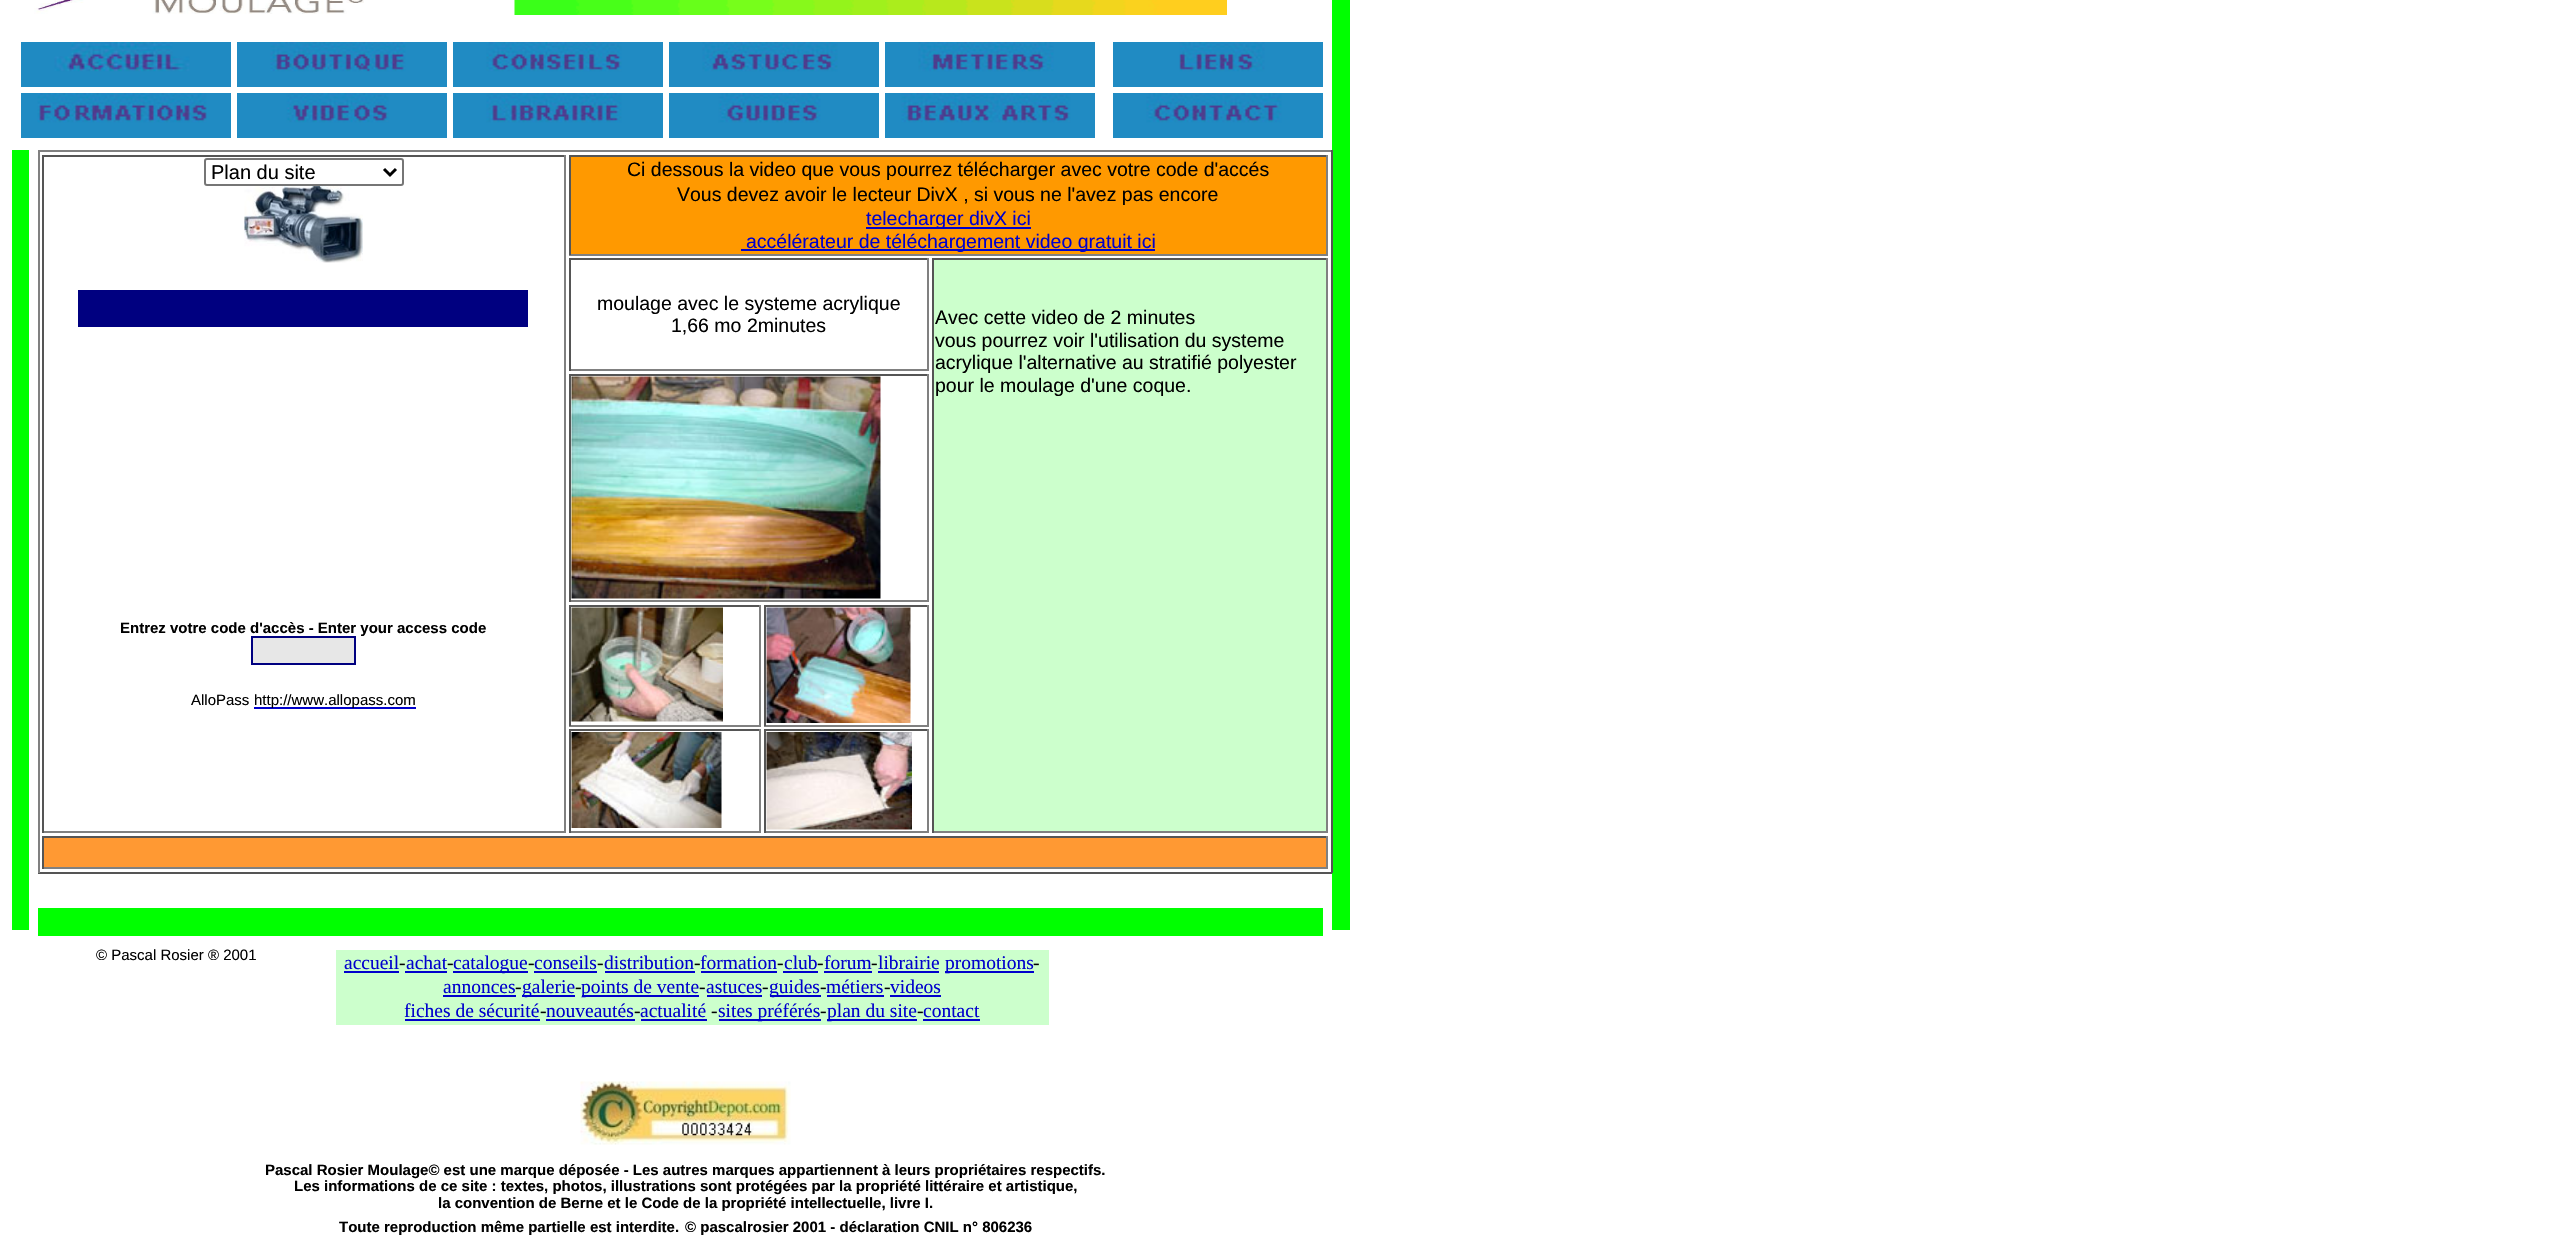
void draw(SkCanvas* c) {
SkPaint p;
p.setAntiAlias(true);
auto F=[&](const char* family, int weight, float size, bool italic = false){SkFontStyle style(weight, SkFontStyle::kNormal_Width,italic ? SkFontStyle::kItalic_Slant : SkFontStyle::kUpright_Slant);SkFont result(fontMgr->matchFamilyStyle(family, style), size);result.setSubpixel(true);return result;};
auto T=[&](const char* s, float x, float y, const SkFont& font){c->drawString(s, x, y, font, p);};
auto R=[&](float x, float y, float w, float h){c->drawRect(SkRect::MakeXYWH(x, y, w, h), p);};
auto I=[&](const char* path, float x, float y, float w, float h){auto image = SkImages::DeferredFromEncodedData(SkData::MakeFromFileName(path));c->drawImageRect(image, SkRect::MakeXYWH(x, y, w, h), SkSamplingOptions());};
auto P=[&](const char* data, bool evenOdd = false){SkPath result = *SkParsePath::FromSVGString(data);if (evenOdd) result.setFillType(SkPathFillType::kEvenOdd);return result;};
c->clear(0xffffffff);
I("1.png",34,0,330,14);
I("2.png",514,0,713,15);
I("3.png",21,42,210,45);
I("4.png",237,42,210,45);
I("5.png",453,42,210,45);
I("6.png",669,42,210,45);
I("7.png",885,42,210,45);
I("8.png",1113,42,210,45);
I("9.png",21,93,210,45);
I("10.png",237,93,210,45);
I("11.png",453,93,210,45);
I("12.png",669,93,210,45);
I("13.png",885,93,210,45);
I("14.png",1113,93,210,45);
p.setColor(0xff00ff00);
R(1332,0,18,930);
R(12,150,17,780);
p.setColor(0xff808080);
R(38,150,1294,2);
p.setColor(0xff555555);
R(1331,150,2,723);
R(38,872,1294,2);
p.setColor(0xff808080);
R(38,150,2,723);
p.setColor(0xff555555);
R(42,155,524,2);
p.setColor(0xff808080);
R(564,155,2,678);
R(42,831,524,2);
p.setColor(0xff555555);
R(42,155,2,678);
p.setStroke(true);
p.setStrokeWidth(2);
p.setColor(0xff767676);
c->drawRoundRect(SkRect::MakeXYWH(205,159,198,26),2,2,p);
p.setStrokeWidth(3);
p.setColor(0xff000000);
c->drawPath(P("M384 169l6 6l6-6"),p);
auto f1 = F("Liberation Sans",400,20);
p.setStroke(false);
T("Plan du site",211,179,f1);
I("15.png",244,186,119,77);
p.setColor(0xff000080);
R(78,290,450,37);
auto f2 = F("Liberation Sans",700,15);
p.setColor(0xff000000);
T("Entrez votre code d'accès - Enter your access code",120,633,f2);
p.setColor(0xffe7e7e7);
c->drawRect(SkRect::MakeXYWH(252,637,103,27),p);
p.setStroke(true);
p.setStrokeWidth(2);
p.setColor(0xff000080);
c->drawRect(SkRect::MakeXYWH(252,637,103,27),p);
auto f3 = F("Liberation Sans",400,15);
p.setStroke(false);
p.setColor(0xff000000);
T("AlloPass",191,705,f3);
p.setColor(0xff0000cc);
R(254,707,162,2);
p.setColor(0xff000000);
T("http://www.allopass.com",254,705,f3);
p.setColor(0xffff9900);
R(571,157,755,97);
p.setColor(0xff555555);
R(569,155,759,2);
p.setColor(0xff808080);
R(1326,155,2,100);
R(569,254,759,2);
p.setColor(0xff555555);
R(569,155,2,100);
auto f4 = F("Liberation Sans",400,19.5);
p.setColor(0xff000000);
T("Ci dessous la video que vous pourrez télécharger avec votre code d'accés",627,176,f4);
T("Vous devez avoir le lecteur DivX , si vous ne l'avez pas encore",677,201,f4);
p.setColor(0xff0000cc);
R(866,227,165,2);
T("telecharger divX ici",866,225,f4);
R(741,249,414,2);
T("accélérateur de téléchargement video gratuit ici",746,248,f4);
p.setColor(0xff555555);
R(569,258,360,2);
p.setColor(0xff808080);
R(927,258,2,113);
R(569,369,360,2);
p.setColor(0xff555555);
R(569,258,2,113);
p.setColor(0xff000000);
T("moulage avec le systeme acrylique",597,310,f4);
T("1,66 mo 2minutes",671,332,f4);
p.setColor(0xffccffcc);
R(934,260,392,571);
p.setColor(0xff555555);
R(932,258,396,2);
p.setColor(0xff808080);
R(1326,258,2,575);
R(932,831,396,2);
p.setColor(0xff555555);
R(932,258,2,575);
p.setColor(0xff000000);
T("Avec cette video de 2 minutes",935,324,f4);
T("vous pourrez voir l'utilisation du systeme",935,347,f4);
T("acrylique l'alternative au stratifié polyester",935,369,f4);
T("pour le moulage d'une coque.",935,392,f4);
p.setColor(0xff555555);
R(569,374,360,2);
p.setColor(0xff808080);
R(927,374,2,228);
R(569,600,360,2);
p.setColor(0xff555555);
R(569,374,2,228);
I("16.png",571,376,310,223);
R(569,605,192,2);
p.setColor(0xff808080);
R(759,605,2,121);
R(569,725,192,2);
p.setColor(0xff555555);
R(569,605,2,121);
I("17.png",571,607,152,115);
R(764,605,165,2);
p.setColor(0xff808080);
R(927,605,2,121);
R(764,725,165,2);
p.setColor(0xff555555);
R(764,605,2,121);
I("18.png",766,607,145,116);
R(569,729,192,2);
p.setColor(0xff808080);
R(759,729,2,104);
R(569,831,192,2);
p.setColor(0xff555555);
R(569,729,2,104);
I("19.png",571,732,151,96);
R(764,729,165,2);
p.setColor(0xff808080);
R(927,729,2,104);
R(764,831,165,2);
p.setColor(0xff555555);
R(764,729,2,104);
I("20.png",766,732,146,98);
p.setColor(0xffff9933);
R(44,838,1282,29);
p.setColor(0xff555555);
R(42,836,1286,2);
p.setColor(0xff808080);
R(1326,836,2,33);
R(42,867,1286,2);
p.setColor(0xff555555);
R(42,836,2,33);
p.setColor(0xff00ff00);
R(38,908,1285,28);
p.setColor(0xff000000);
T("© Pascal Rosier ® 2001",96,960,f3);
p.setColor(0xffccffcc);
R(336,950,713,75);
auto f5 = F("Liberation Serif",400,19.5);
p.setColor(0xff0000cc);
T("accueil",344,969,f5);
p.setColor(0xff000000);
T("-",399,969,f5);
p.setColor(0xff0000cc);
R(344,971,55,2);
R(405,971,42,2);
T("achat",406,969,f5);
p.setColor(0xff000000);
T("-",447,969,f5);
p.setColor(0xff0000cc);
R(453,971,75,2);
T("catalogue",453,969,f5);
p.setColor(0xff000000);
T("-",528,969,f5);
p.setColor(0xff0000cc);
R(534,971,63,2);
T("conseils",534,969,f5);
p.setColor(0xff000000);
T("-",597,969,f5);
p.setColor(0xff0000cc);
T("distribution",604,969,f5);
p.setColor(0xff000000);
T("-",694,969,f5);
p.setColor(0xff0000cc);
R(605,971,90,2);
T("formation",700,969,f5);
p.setColor(0xff000000);
T("-",777,969,f5);
p.setColor(0xff0000cc);
R(701,971,76,2);
R(783,971,35,2);
T("club",784,969,f5);
p.setColor(0xff000000);
T("-",817,969,f5);
p.setColor(0xff0000cc);
R(824,971,48,2);
T("forum",824,969,f5);
p.setColor(0xff000000);
T("-",871,969,f5);
p.setColor(0xff0000cc);
R(878,971,61,2);
T("librairie",878,969,f5);
R(945,971,89,2);
T("promotions",945,969,f5);
p.setColor(0xff000000);
T("-",1033,969,f5);
p.setColor(0xff0000cc);
T("annonces",443,993,f5);
R(443,995,73,2);
p.setColor(0xff000000);
T("-",515,993,f5);
p.setColor(0xff0000cc);
R(522,995,53,2);
T("galerie",522,993,f5);
p.setColor(0xff000000);
T("-",575,993,f5);
p.setColor(0xff0000cc);
R(582,995,117,2);
T("points de vente",581,993,f5);
p.setColor(0xff000000);
T("-",699,993,f5);
p.setColor(0xff0000cc);
R(707,995,55,2);
T("astuces",706,993,f5);
p.setColor(0xff000000);
T("-",762,993,f5);
p.setColor(0xff0000cc);
R(770,995,51,2);
T("guides",769,993,f5);
p.setColor(0xff000000);
T("-",820,993,f5);
p.setColor(0xff0000cc);
T("métiers",826,993,f5);
p.setColor(0xff000000);
T("-",884,993,f5);
p.setColor(0xff0000cc);
R(827,995,57,2);
R(890,995,51,2);
T("videos",890,993,f5);
T("fiches de sécurité",404,1017,f5);
p.setColor(0xff000000);
T("-",540,1017,f5);
p.setColor(0xff0000cc);
R(405,1019,135,2);
R(546,1019,89,2);
T("nouveautés",546,1017,f5);
p.setColor(0xff000000);
T("-",634,1017,f5);
p.setColor(0xff0000cc);
R(641,1019,66,2);
T("actualité",640,1017,f5);
p.setColor(0xff000000);
T("-",711,1017,f5);
p.setColor(0xff0000cc);
R(719,1019,102,2);
T("sites préférés",718,1017,f5);
p.setColor(0xff000000);
T("-",820,1017,f5);
p.setColor(0xff0000cc);
R(827,1019,90,2);
T("plan du site",827,1017,f5);
p.setColor(0xff000000);
T("-",917,1017,f5);
p.setColor(0xff0000cc);
R(923,1019,57,2);
T("contact",923,1017,f5);
I("21.png",580,1081,211,64);
p.setColor(0xff000000);
T("Pascal Rosier Moulage© est une marque déposée - Les autres marques appartiennent à leurs propriétaires respectifs.",265,1175,f2);
T("Les informations de ce site : textes, photos, illustrations sont protégées par la propriété littéraire et artistique,",294,1191,f2);
T("la convention de Berne et le Code de la propriété intellectuelle, livre I.",438,1208,f2);
T("Toute reproduction même partielle est interdite.",339,1232,f2);
T("© pascalrosier 2001 - déclaration CNIL n° 806236",685,1232,f2);
}
